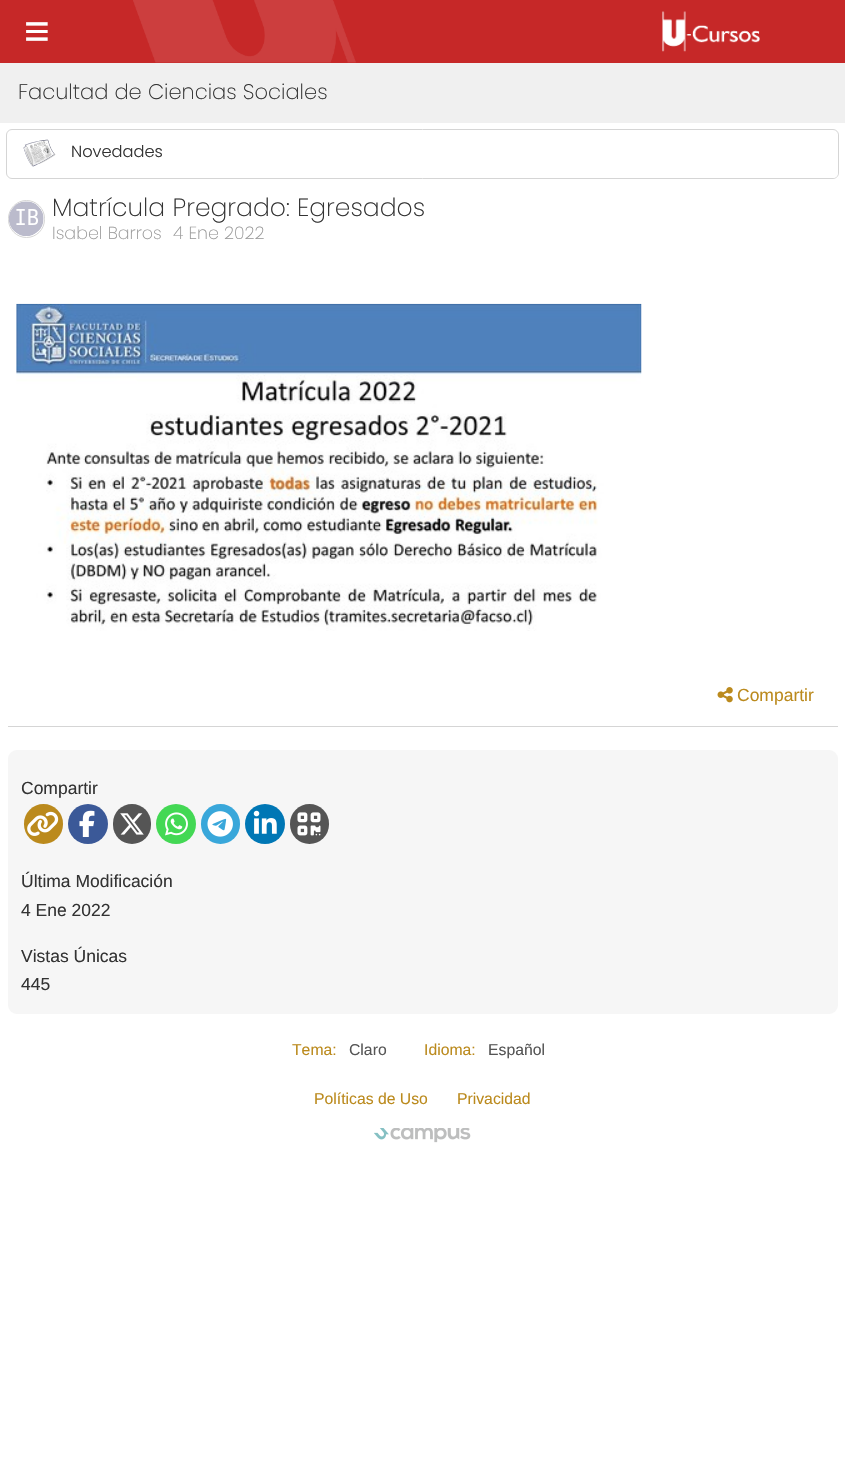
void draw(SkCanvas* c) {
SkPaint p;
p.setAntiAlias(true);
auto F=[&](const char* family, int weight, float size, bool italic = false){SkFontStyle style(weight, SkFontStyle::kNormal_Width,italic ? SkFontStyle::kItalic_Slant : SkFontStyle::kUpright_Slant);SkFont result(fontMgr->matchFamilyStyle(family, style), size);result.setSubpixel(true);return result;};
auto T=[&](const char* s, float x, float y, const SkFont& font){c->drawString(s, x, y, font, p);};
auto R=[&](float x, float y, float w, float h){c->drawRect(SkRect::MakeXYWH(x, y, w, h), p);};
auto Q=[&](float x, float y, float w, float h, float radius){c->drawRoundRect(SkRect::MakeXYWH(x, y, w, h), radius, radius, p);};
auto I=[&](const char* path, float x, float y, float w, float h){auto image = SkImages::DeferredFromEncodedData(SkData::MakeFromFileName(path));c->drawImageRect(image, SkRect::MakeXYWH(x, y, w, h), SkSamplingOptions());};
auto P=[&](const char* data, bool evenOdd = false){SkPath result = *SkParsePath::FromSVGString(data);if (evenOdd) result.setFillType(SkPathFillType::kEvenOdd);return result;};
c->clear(0xffffffff);
p.setColor(0xffc62828);
R(0,0,845,63);
I("1.png",133,0,223,63);
I("2.png",662,11,98,41);
auto f1 = F("Liberation Sans",400,44);
p.setColor(0xffffffff);
T("≡",24,46,f1);
p.setColor(0xfff0f0f0);
R(0,63,845,60);
auto f2 = F("Poppins",200,21);
p.setColor(0xff333333);
T("Facultad de Ciencias Sociales",18,99,f2);
p.setStroke(true);
p.setStrokeWidth(1);
p.setColor(0xffd5d5d5);
c->drawRoundRect(SkRect::MakeXYWH(6.5,129.5,832,49),5.5,5.5,p);
c->save();
c->clipPath(P("M13 130h820c3 0 5 2 5 5v38c0 3-2 5-5 5h-820c-3 0-5-2-5-5v-38c0-3 2-5 5-5z"),true);
p.setStroke(false);
p.setColor(0xffffffff);
c->drawPath(P("M26 134h812v39c0 3-2 5-5 5h-813v-38c0-3.5 2.5-6 6-6z"),p);
c->restore();
I("3.png",23,139,33,28);
auto f3 = F("Poppins",300,16.25);
p.setColor(0xff333333);
T("Novedades",71,157,f3);
p.setStroke(true);
p.setColor(0xffd5d5d5);
c->drawRoundRect(SkRect::MakeXYWH(8.5,200.5,36,37),18,18,p);
I("4.png",9,201,35,35);
auto f4 = F("Poppins",200,25);
p.setStroke(false);
p.setColor(0xff333333);
T("Matrícula Pregrado: Egresados",52,216,f4);
auto f5 = F("Poppins",200,17.5);
p.setColor(0xff999999);
T("Isabel Barros",52,239,f5);
T("4 Ene 2022",173,239,f5);
p.setColor(0xffd5d5d5);
R(8,726,830,1);
I("5.png",16,303,626,328);
I("6.png",717,687,16,16);
auto f6 = F("Liberation Sans",400,17.5);
p.setColor(0xffbb8a1d);
T("Compartir",737,701,f6);
p.setColor(0xfff6f6f6);
Q(8,750,830,264,9);
p.setColor(0xff333333);
T("Compartir",21,794,f6);
p.setColor(0xffbb8a1d);
Q(24,804,39,40,19.5);
I("7.png",27,811,32,25);
p.setColor(0xff3b5998);
c->drawCircle(88,824,20,p);
I("8.png",79,810,16,27);
p.setColor(0xff555555);
Q(113,804,38,40,19);
I("9.png",120,813,24,22);
p.setColor(0xff43d854);
c->drawCircle(176,824,20,p);
I("10.png",165,812,23,24);
p.setColor(0xff39a7da);
Q(201,804,39,40,19.5);
I("11.png",207,811,26,26);
p.setColor(0xff0077b5);
c->drawCircle(265,824,20,p);
I("12.png",253,810,24,24);
p.setColor(0xff555555);
Q(290,804,39,40,19.5);
I("13.png",297,812,24,24);
p.setColor(0xff333333);
T("Última Modificación",21,887,f6);
T("4 Ene 2022",21,916,f6);
T("Vistas Únicas",21,962,f6);
T("445",21,990,f6);
auto f7 = F("Liberation Sans",400,15.75);
p.setColor(0xffbb8a1d);
T("Tema:",292,1055,f7);
p.setColor(0xff555555);
T("Claro",349,1055,f7);
p.setColor(0xffbb8a1d);
T("Idioma:",424,1055,f7);
p.setColor(0xff555555);
T("Español",488,1055,f7);
p.setColor(0xffbb8a1d);
T("Políticas de Uso",314,1104,f7);
T("Privacidad",457,1104,f7);
I("14.png",374,1128,97,15);
}
